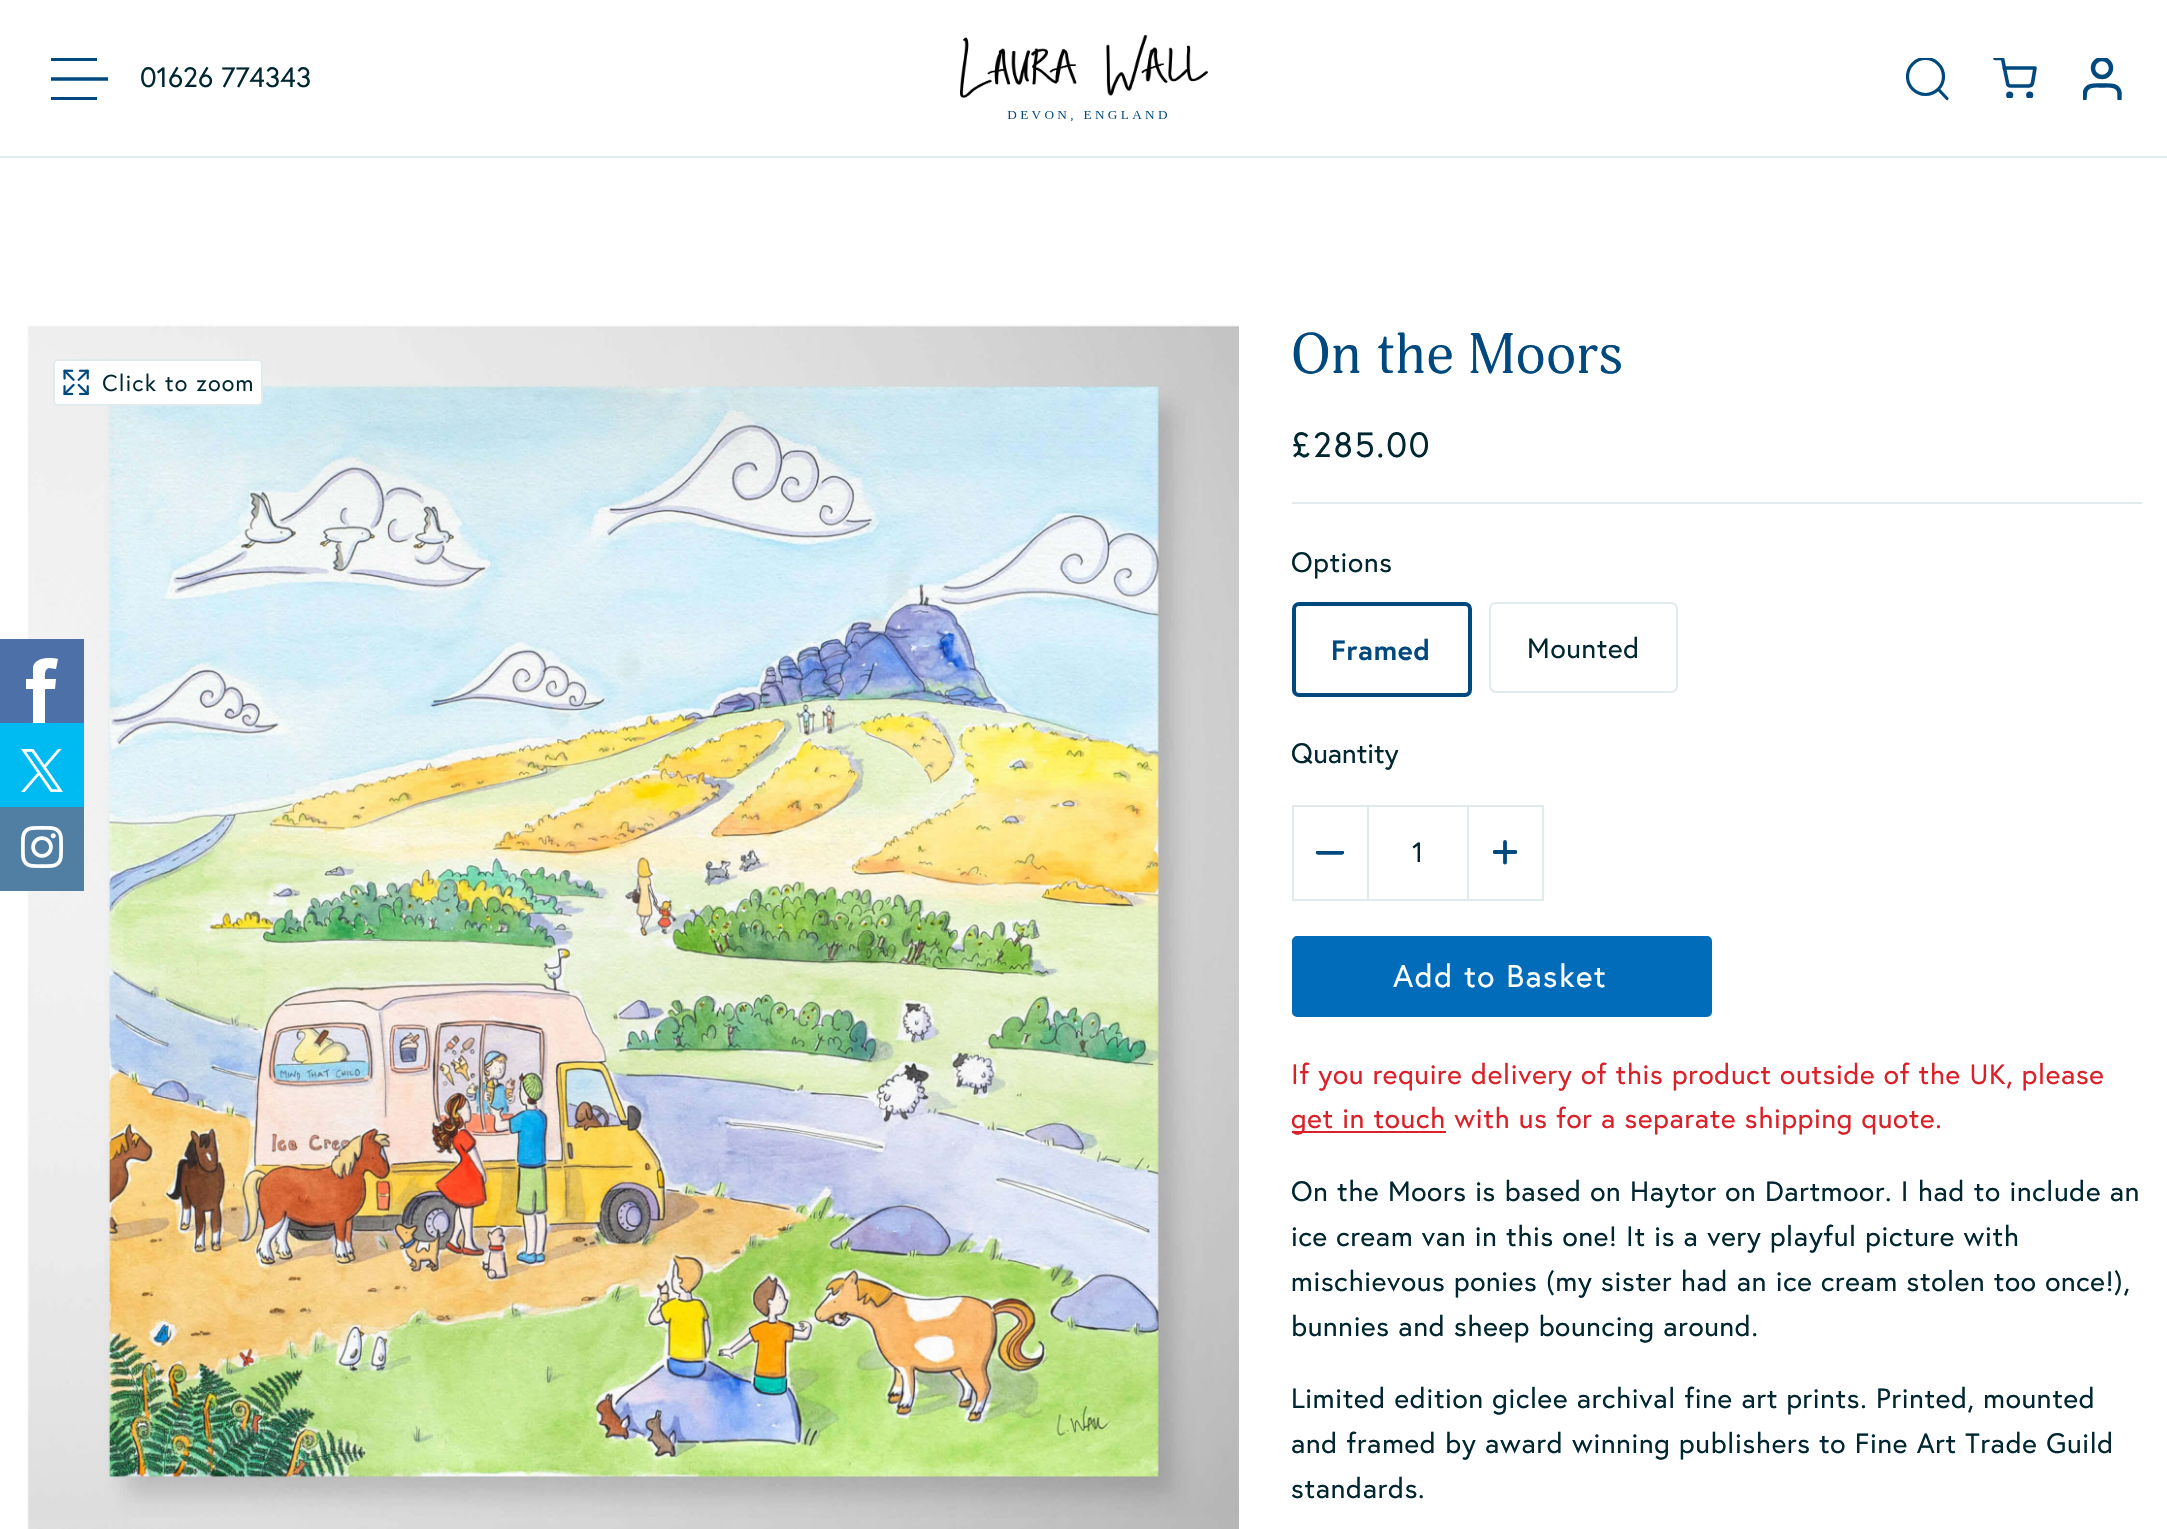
void draw(SkCanvas* c) {
SkPaint p;
p.setAntiAlias(true);
auto F=[&](const char* family, int weight, float size, bool italic = false){SkFontStyle style(weight, SkFontStyle::kNormal_Width,italic ? SkFontStyle::kItalic_Slant : SkFontStyle::kUpright_Slant);SkFont result(fontMgr->matchFamilyStyle(family, style), size);result.setSubpixel(true);return result;};
auto T=[&](const char* s, float x, float y, const SkFont& font){c->drawString(s, x, y, font, p);};
auto L=[&](const char* s, float x, float y, const SkFont& font, const SkPaint& ink, float letter, float word){std::vector<SkGlyphID> glyphs(font.countText(s, strlen(s), SkTextEncoding::kUTF8));std::vector<float> xs(glyphs.size());font.textToGlyphs(s, strlen(s), SkTextEncoding::kUTF8, glyphs);font.getXPos(glyphs, xs, x);float extra = 0;for (size_t i = 0; i < glyphs.size(); i++) {xs[i] += extra;extra += letter + word * (glyphs[i] == font.unicharToGlyph(' '));}c->drawTextBlob(SkTextBlob::MakeFromPosHGlyphs(glyphs, xs, y, font), 0, 0, ink);};
auto R=[&](float x, float y, float w, float h){c->drawRect(SkRect::MakeXYWH(x, y, w, h), p);};
auto I=[&](const char* path, float x, float y, float w, float h){auto image = SkImages::DeferredFromEncodedData(SkData::MakeFromFileName(path));c->drawImageRect(image, SkRect::MakeXYWH(x, y, w, h), SkSamplingOptions());};
auto P=[&](const char* data, bool evenOdd = false){SkPath result = *SkParsePath::FromSVGString(data);if (evenOdd) result.setFillType(SkPathFillType::kEvenOdd);return result;};
c->clear(0xffffffff);
p.setColor(0xffe1ebed);
R(0,156,2167,2);
c->save();
c->clipRect(SkRect::MakeXYWH(51,58,57,42));
p.setStroke(true);
p.setStrokeWidth(3.4);
p.setStrokeCap(SkPaint::kSquare_Cap);
p.setStrokeJoin(SkPaint::kRound_Join);
p.setColor(0xff00497e);
c->drawPath(P("M52.5 79h54.5"),p);
c->restore();
p.setStroke(false);
R(51,58,46,3);
R(51,97,46,3);
auto f1 = F("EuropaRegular",400,28);
p.setColor(0xff00262f);
T("01626 774343",140,87,f1);
I("1.png",960,35,248,87);
c->save();
c->clipRect(SkRect::MakeXYWH(1906,58,44,42));
p.setStroke(true);
p.setStrokeWidth(3.2);
p.setStrokeCap(SkPaint::kButt_Cap);
p.setStrokeJoin(SkPaint::kMiter_Join);
p.setColor(0xff00497e);
c->drawCircle(1925.5,76.5,18,p);
c->restore();
p.setStrokeCap(SkPaint::kRound_Cap);
p.setStrokeJoin(SkPaint::kRound_Join);
c->drawPath(P("M1947 98.5l-8-8.5"),p);
c->save();
c->clipRect(SkRect::MakeXYWH(1993,58,44,40));
p.setStrokeWidth(3.6);
p.setStrokeCap(SkPaint::kButt_Cap);
p.setStrokeJoin(SkPaint::kMiter_Join);
c->drawCircle(2009.7,95.1,1.8,p);
c->drawCircle(2029.7,95.1,1.8,p);
p.setStrokeCap(SkPaint::kRound_Cap);
p.setStrokeJoin(SkPaint::kRound_Join);
c->drawPath(P("M1995 58.5h7.5l5 24.5c0 2 1.5 3 3.5 3h17.5c2 0 3.5-1 4-3l2.5-15h-31"),p);
c->restore();
c->save();
c->clipRect(SkRect::MakeXYWH(2083,58,40,42));
p.setStrokeWidth(4.4);
c->drawPath(P("M2119.5 98.5v-6c-1.5-8.5-11-7-17.5-7c-6 0-15.5-1.5-17 7l-.5 6"),p);
p.setStrokeCap(SkPaint::kButt_Cap);
p.setStrokeJoin(SkPaint::kMiter_Join);
c->drawCircle(2102,68,9,p);
c->restore();
I("4.png",27,324,1212,1205);
p.setStroke(false);
p.setColor(0xff4d70a8);
R(0,639,84,84);
p.setColor(0xffffffff);
c->drawPath(P("M49 668l7 1l2-10c-8-2-23-2-25 8v12h-7v10h7v34h12v-34h10l1-10h-11c0-3-1-10 4-11"),p);
p.setColor(0xff00baf2);
R(0,723,84,84);
I("2.png",21,749,42,43);
p.setColor(0xff517fa4);
R(0,807,84,84);
I("3.png",21,826,42,42);
p.setColor(0xffffffff);
c->drawRoundRect(SkRect::MakeXYWH(54,360,208,45),4,4,p);
p.setStroke(true);
p.setStrokeWidth(2);
p.setColor(0xffe1ebed);
c->drawRoundRect(SkRect::MakeXYWH(54,360,208,45),4,4,p);
I("5.png",63,369,189,27);
auto f2 = F("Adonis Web",400,56);
p.setStroke(false);
p.setColor(0xff00497e);
L("On the Moors",1291,373,f2,p,.8,0);
auto f3 = F("EuropaRegular",400,35);
p.setColor(0xff00262f);
L("£285.00",1291,457,f3,p,1.75,0);
p.setColor(0xffe1ebed);
R(1292,502,850,2);
p.setColor(0xff00262f);
L("Options",1291,572,f1,p,.7,0);
p.setStroke(true);
p.setStrokeWidth(4);
p.setColor(0xff00497e);
c->drawRoundRect(SkRect::MakeXYWH(1294,604,176,91),5,5,p);
auto f4 = F("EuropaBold",700,28);
p.setStroke(false);
L("Framed",1331,660,f4,p,.7,0);
p.setStroke(true);
p.setStrokeWidth(2);
p.setColor(0xffe1ebed);
c->drawRoundRect(SkRect::MakeXYWH(1490,603,187,89),6,6,p);
p.setStroke(false);
p.setColor(0xff00262f);
L("Mounted",1527,658,f1,p,.7,0);
T("Quantity",1291,763,f1);
p.setStroke(true);
p.setColor(0xffe1ebed);
c->drawRect(SkRect::MakeXYWH(1293,806,250,94),p);
c->save();
c->clipRect(SkRect::MakeXYWH(1316,851,28,5));
p.setStrokeWidth(4.3);
p.setStrokeCap(SkPaint::kRound_Cap);
p.setStrokeJoin(SkPaint::kRound_Join);
p.setColor(0xff00497e);
c->drawPath(P("M1318 852.5h24"),p);
c->restore();
p.setStroke(false);
p.setColor(0xffe1ebed);
R(1467,807,2,93);
R(1367,807,2,93);
p.setColor(0xff00262f);
T("1",1412,862,f1);
p.setStroke(true);
p.setStrokeWidth(3.8);
p.setColor(0xff00497e);
c->drawPath(P("M1505 842v20.5"),p);
c->save();
c->clipRect(SkRect::MakeXYWH(1493,840,24,25));
c->drawPath(P("M1494.5 852h21"),p);
c->restore();
p.setStroke(false);
p.setColor(0xff006cba);
c->drawRoundRect(SkRect::MakeXYWH(1293,937,418,79),4,4,p);
p.setStroke(true);
p.setStrokeWidth(2);
p.setStrokeCap(SkPaint::kButt_Cap);
p.setStrokeJoin(SkPaint::kMiter_Join);
c->drawRoundRect(SkRect::MakeXYWH(1293,937,418,79),4,4,p);
auto f5 = F("EuropaRegular",400,31.5);
p.setStroke(false);
p.setColor(0xffffffff);
L("Add to Basket",1393,987,f5,p,1.5,0);
p.setColor(0xffda2129);
L("If you require delivery of this product outside of the UK, please",1291,1084,f1,p,.7,0);
R(1292,1131,154,2);
L("get in touch with us for a separate shipping quote.",1291,1128,f1,p,.7,0);
p.setColor(0xff00262f);
L("On the Moors is based on Haytor on Dartmoor. I had to include an",1291,1201,f1,p,.7,0);
L("ice cream van in this one! It is a very playful picture with",1291,1246,f1,p,.7,0);
L("mischievous ponies (my sister had an ice cream stolen too once!),",1291,1291,f1,p,.7,0);
L("bunnies and sheep bouncing around.",1291,1336,f1,p,.7,0);
L("Limited edition giclee archival fine art prints. Printed, mounted",1291,1408,f1,p,.7,0);
L("and framed by award winning publishers to Fine Art Trade Guild",1291,1453,f1,p,.7,0);
L("standards.",1291,1498,f1,p,.7,0);
}
